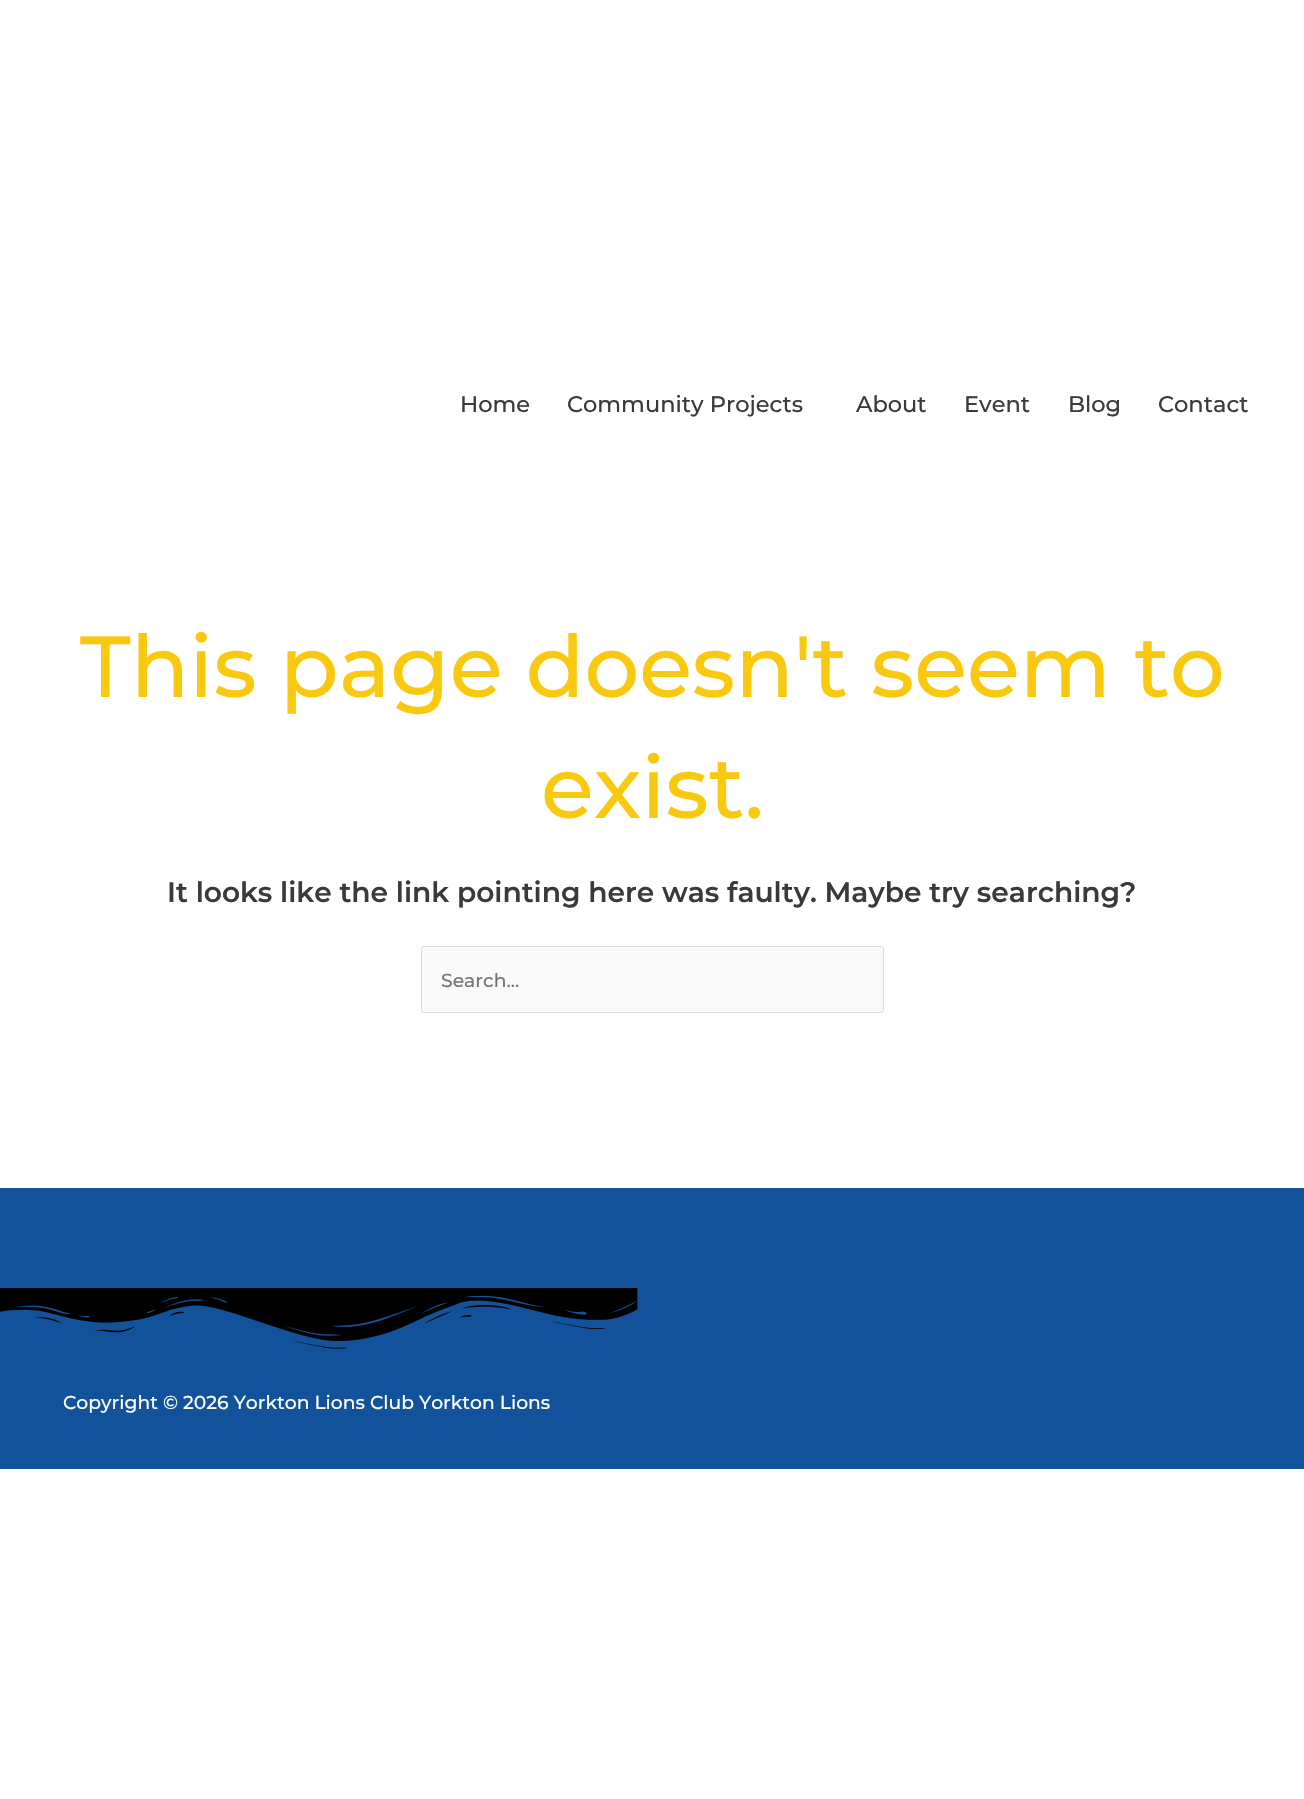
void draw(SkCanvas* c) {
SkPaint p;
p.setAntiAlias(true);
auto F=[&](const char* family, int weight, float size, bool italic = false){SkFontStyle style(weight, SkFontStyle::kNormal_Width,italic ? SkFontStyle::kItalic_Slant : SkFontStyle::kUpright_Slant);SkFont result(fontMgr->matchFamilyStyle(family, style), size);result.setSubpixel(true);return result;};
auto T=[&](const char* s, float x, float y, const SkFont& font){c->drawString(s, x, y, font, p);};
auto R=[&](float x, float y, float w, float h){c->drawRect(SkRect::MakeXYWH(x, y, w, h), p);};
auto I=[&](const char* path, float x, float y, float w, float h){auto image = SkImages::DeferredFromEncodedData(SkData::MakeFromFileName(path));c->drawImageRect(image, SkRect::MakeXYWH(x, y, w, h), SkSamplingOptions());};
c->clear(0xffffffff);
auto f1 = F("Montserrat",500,22.5);
p.setColor(0xff3a3a3a);
T("Home",460,412,f1);
T("Community Projects",567,412,f1);
T("About",856,412,f1);
T("Event",964,412,f1);
T("Blog",1068,412,f1);
T("Contact",1158,412,f1);
auto f2 = F("Montserrat",500,86.25);
p.setColor(0xfff9c910);
T("This page doesn't seem to",80,697,f2);
T("exist.",541,818,f2);
auto f3 = F("Montserrat",600,28.1);
p.setColor(0xff3a3a3a);
T("It looks like the link pointing here was faulty. Maybe try searching?",167,902,f3);
p.setColor(0xfffafafa);
c->drawRoundRect(SkRect::MakeXYWH(421.5,946.5,462,66),2,2,p);
p.setStroke(true);
p.setStrokeWidth(1);
p.setColor(0xffdddddd);
c->drawRoundRect(SkRect::MakeXYWH(421.5,946.5,462,66),2,2,p);
auto f4 = F("Montserrat",500,18.75);
p.setStroke(false);
p.setColor(0xff757575);
T("Search...",441,987,f4);
p.setColor(0xff11529b);
R(0,1188,1304,281);
I("1.png",0,1288,638,61);
p.setColor(0xffffffff);
T("Copyright © 2026 Yorkton Lions Club Yorkton Lions",63,1409,f4);
}
